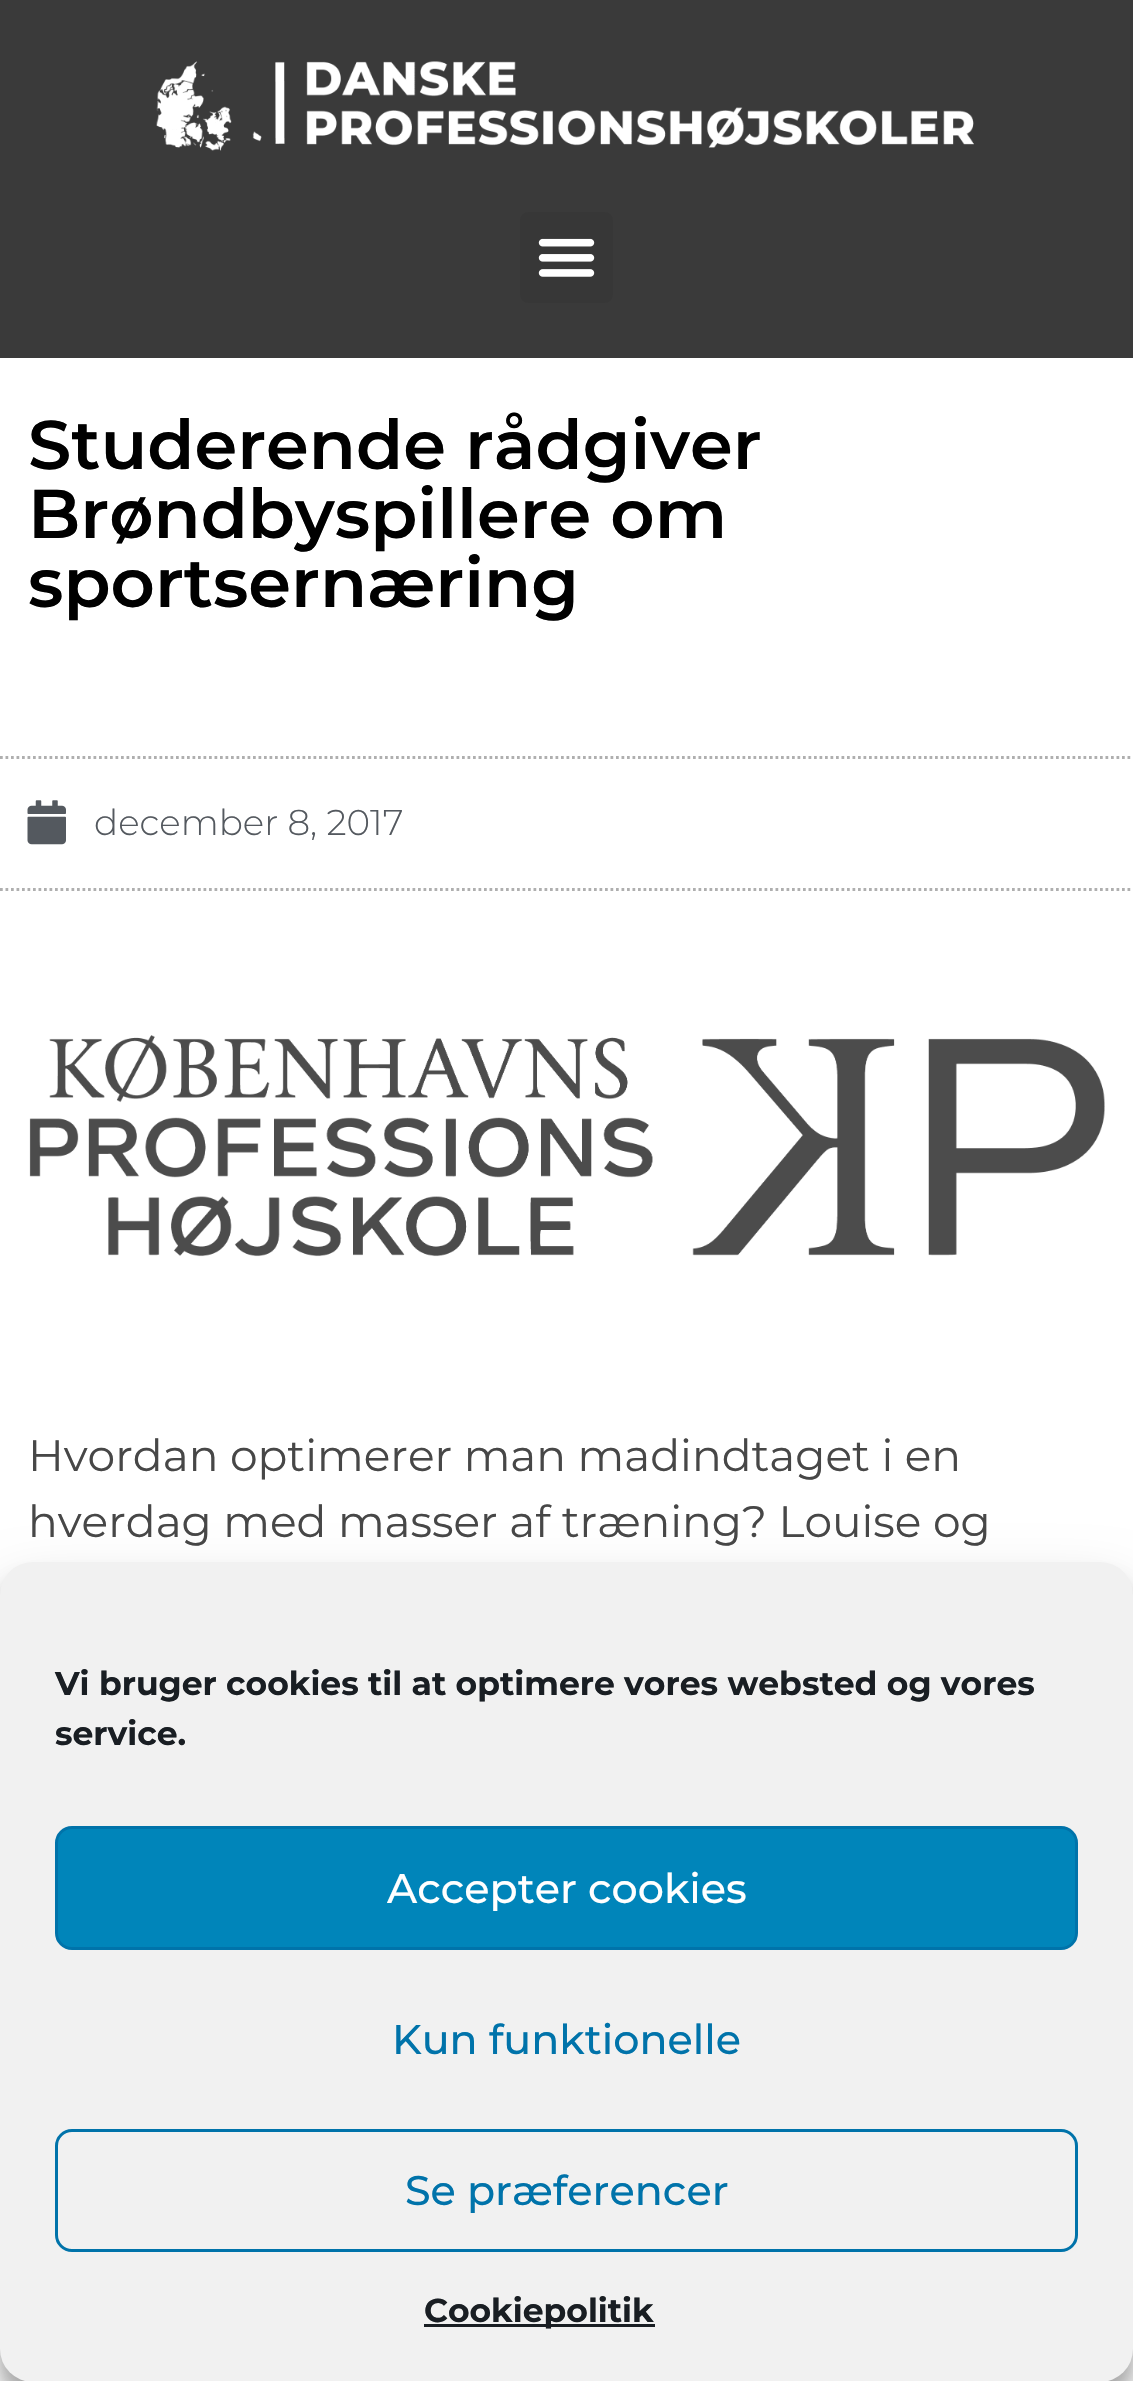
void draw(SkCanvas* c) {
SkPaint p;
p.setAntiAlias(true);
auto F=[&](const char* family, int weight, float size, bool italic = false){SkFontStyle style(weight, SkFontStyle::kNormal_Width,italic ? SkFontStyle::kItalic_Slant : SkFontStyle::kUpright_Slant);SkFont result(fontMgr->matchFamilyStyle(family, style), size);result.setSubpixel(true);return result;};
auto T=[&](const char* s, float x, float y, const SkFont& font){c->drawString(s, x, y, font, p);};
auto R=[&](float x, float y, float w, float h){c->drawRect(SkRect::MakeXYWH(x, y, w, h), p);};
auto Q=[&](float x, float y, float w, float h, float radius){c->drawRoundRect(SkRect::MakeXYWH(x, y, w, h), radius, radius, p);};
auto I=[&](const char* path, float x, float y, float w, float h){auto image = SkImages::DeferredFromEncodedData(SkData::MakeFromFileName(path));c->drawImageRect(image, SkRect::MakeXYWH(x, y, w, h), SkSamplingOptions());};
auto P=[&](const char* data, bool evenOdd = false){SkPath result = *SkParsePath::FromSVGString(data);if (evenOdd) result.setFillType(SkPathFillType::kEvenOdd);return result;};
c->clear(0xffffffff);
p.setColor(0xff3a3a3a);
R(0,0,1133,358);
I("1.png",156,61,818,90);
p.setColor(0xff373737);
Q(520,212,93,91,8);
I("2.png",538,238,57,39);
auto f1 = F("Montserrat",600,68.75);
p.setColor(0xff000000);
T("Studerende rådgiver",28,469,f1);
T("Brøndbyspillere om",28,538,f1);
T("sportsernæring",28,607,f1);
p.setStroke(true);
p.setStrokeWidth(2.8);
p.setColor(0xffafafaf);
p.setPathEffect(SkDashPathEffect::Make({{2.75f,2.75f}}, 0));
c->drawPath(P("M0 757.5h1133"),p);
p.setPathEffect(nullptr);
p.setPathEffect(SkDashPathEffect::Make({{2.75f,2.75f}}, 0));
c->drawPath(P("M0 889.5h1133"),p);
p.setPathEffect(nullptr);
I("3.png",27,800,39,45);
auto f2 = F("Montserrat",300,35.75);
p.setStroke(false);
p.setColor(0xff54595f);
T("december 8, 2017",94,835,f2);
I("4.png",29,1035,1076,222);
auto f3 = F("Montserrat",400,44);
p.setColor(0xff474747);
T("Hvordan optimerer man madindtaget i en",28,1471,f3);
T("hverdag med masser af træning? Louise og",28,1537,f3);
p.setColor(0x3b000000);
p.setMaskFilter(SkMaskFilter::MakeBlur(kNormal_SkBlurStyle, 8));
c->drawRoundRect(SkRect::MakeXYWH(0,1579,1133,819),33,33,p);
p.setMaskFilter(nullptr);
p.setColor(0x30000000);
p.setMaskFilter(SkMaskFilter::MakeBlur(kNormal_SkBlurStyle, 27.5));
c->drawRoundRect(SkRect::MakeXYWH(0,1590,1133,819),33,33,p);
p.setMaskFilter(nullptr);
p.setColor(0xfff1f1f1);
Q(0,1562,1133,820,33);
auto f4 = F("Montserrat",700,33);
p.setColor(0xff191e23);
T("Vi bruger cookies til at optimere vores websted og vores",55,1695,f4);
T("service.",55,1745,f4);
p.setColor(0xff0085ba);
c->drawRoundRect(SkRect::MakeXYWH(56.5,1827.5,1020,121),15.5,15.5,p);
p.setStroke(true);
p.setStrokeWidth(3);
p.setColor(0xff0073aa);
c->drawRoundRect(SkRect::MakeXYWH(56.5,1827.5,1020,121),15.5,15.5,p);
auto f5 = F("Montserrat",500,41.25);
p.setStroke(false);
p.setColor(0xffffffff);
T("Accepter cookies",387,1903,f5);
p.setColor(0xff0073aa);
T("Kun funktionelle",392,2054,f5);
p.setStroke(true);
c->drawRoundRect(SkRect::MakeXYWH(56.5,2130.5,1020,120),15.5,15.5,p);
p.setStroke(false);
T("Se præferencer",405,2205,f5);
p.setColor(0xff191e23);
R(424,2324,231,3);
T("Cookiepolitik",424,2322,f4);
}
